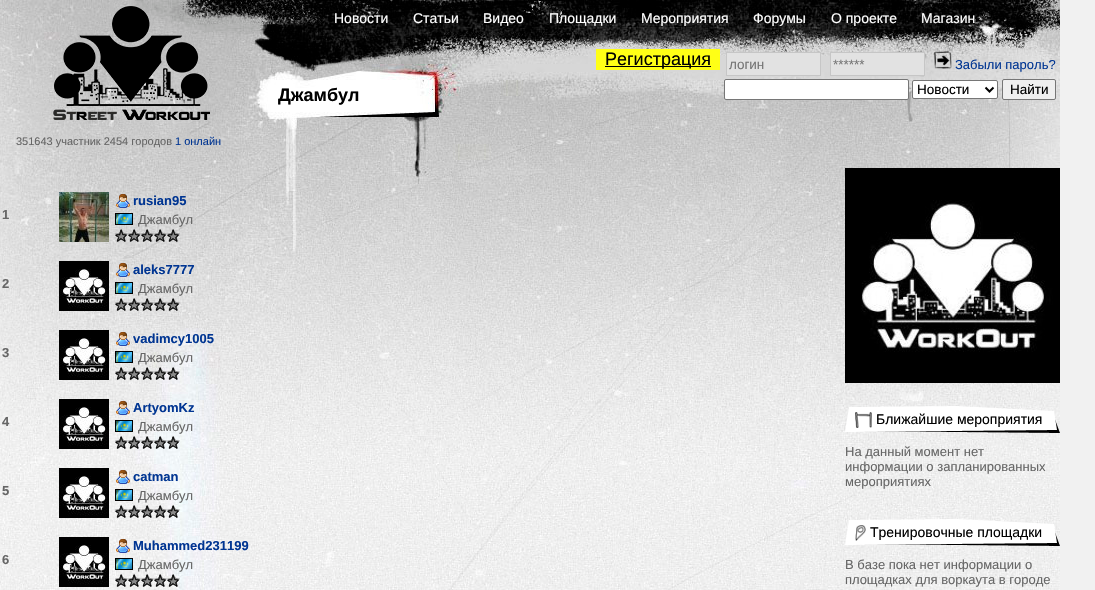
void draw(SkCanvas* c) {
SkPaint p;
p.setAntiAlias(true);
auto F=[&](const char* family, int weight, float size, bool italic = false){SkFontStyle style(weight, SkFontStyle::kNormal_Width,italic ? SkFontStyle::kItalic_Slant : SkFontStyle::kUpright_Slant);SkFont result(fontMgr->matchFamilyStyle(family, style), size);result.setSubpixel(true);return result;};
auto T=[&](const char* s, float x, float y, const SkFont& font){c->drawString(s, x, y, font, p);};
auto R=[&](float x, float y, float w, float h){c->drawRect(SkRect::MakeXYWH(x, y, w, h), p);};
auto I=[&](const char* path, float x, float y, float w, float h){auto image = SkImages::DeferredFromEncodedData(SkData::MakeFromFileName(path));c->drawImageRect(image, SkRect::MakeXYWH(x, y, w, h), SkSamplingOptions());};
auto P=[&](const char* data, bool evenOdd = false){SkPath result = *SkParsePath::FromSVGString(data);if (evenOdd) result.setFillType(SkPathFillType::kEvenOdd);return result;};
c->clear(0xfff1f1f1);
I("1.png",0,0,1060,590);
auto f1 = F("Liberation Sans",400,14);
p.setColor(0xffffffff);
T("Новости",334,23,f1);
T("Статьи",413,23,f1);
T("Видео",483,23,f1);
T("Площадки",549,23,f1);
T("Мероприятия",641,23,f1);
T("Форумы",753,23,f1);
T("О проекте",831,23,f1);
T("Магазин",921,23,f1);
p.setColor(0xffffff16);
R(596,49,124,21);
p.setColor(0xff000000);
R(605,66,106,1);
auto f2 = F("Liberation Sans",400,18);
T("Регистрация",605,65,f2);
p.setColor(0xffe2e2e2);
c->drawRect(SkRect::MakeXYWH(726.5,52.5,94,23),p);
p.setStroke(true);
p.setStrokeWidth(1);
p.setColor(0xffc6c6c6);
c->drawRect(SkRect::MakeXYWH(726.5,52.5,94,23),p);
auto f3 = F("Liberation Sans",400,13.5);
p.setStroke(false);
p.setColor(0xff757575);
T("логин",729,69,f3);
p.setColor(0xffe2e2e2);
c->drawRect(SkRect::MakeXYWH(830.5,52.5,94,23),p);
p.setStroke(true);
p.setColor(0xffc6c6c6);
c->drawRect(SkRect::MakeXYWH(830.5,52.5,94,23),p);
p.setStroke(false);
p.setColor(0xff757575);
T("******",833,69,f3);
I("2.png",934,51,18,18);
auto f4 = F("Liberation Sans",400,13);
p.setColor(0xff003592);
T("Забыли пароль?",955,69,f4);
auto f5 = F("Liberation Sans",700,18);
p.setColor(0xff000000);
T("Джамбул",278,101,f5);
p.setColor(0xffffffff);
c->drawRoundRect(SkRect::MakeXYWH(724.5,79.5,184,20),1.5,1.5,p);
p.setStroke(true);
p.setColor(0xff767676);
c->drawRoundRect(SkRect::MakeXYWH(724.5,79.5,184,20),1.5,1.5,p);
p.setStroke(false);
p.setColor(0xffffffff);
c->drawRoundRect(SkRect::MakeXYWH(912.5,80.5,85,18),1.5,1.5,p);
p.setStroke(true);
p.setColor(0xff767676);
c->drawRoundRect(SkRect::MakeXYWH(912.5,80.5,85,18),1.5,1.5,p);
p.setStrokeWidth(2);
p.setColor(0xff000000);
c->drawPath(P("M985.5 87.5l4 4l4-4"),p);
p.setStroke(false);
T("Новости",917,94,f3);
p.setColor(0xffefefef);
c->drawRoundRect(SkRect::MakeXYWH(1002.5,79.5,53,20),1.5,1.5,p);
p.setStroke(true);
p.setStrokeWidth(1);
p.setColor(0xff767676);
c->drawRoundRect(SkRect::MakeXYWH(1002.5,79.5,53,20),1.5,1.5,p);
p.setStroke(false);
p.setColor(0xff000000);
T("Найти",1010,94,f3);
auto f6 = F("Liberation Sans",400,11);
p.setColor(0xff666666);
T("351643 участник 2454 городов",16,145,f6);
p.setColor(0xff003592);
T("1 онлайн",175,145,f6);
auto f7 = F("Liberation Sans",700,13);
p.setColor(0xff666666);
T("1",2,219,f7);
I("3.png",59,192,50,50);
I("4.png",116,194,14,14);
p.setColor(0xff003592);
T("rusian95",133,205,f7);
I("5.png",115,213,18,12);
p.setColor(0xff666666);
T("Джамбул",138,224,f4);
I("6.png",115,229,13,13);
I("7.png",128,229,13,13);
I("8.png",141,229,13,13);
I("9.png",154,229,13,13);
I("10.png",167,229,13,13);
T("2",2,288,f7);
I("11.png",59,261,50,50);
I("12.png",116,263,14,14);
p.setColor(0xff003592);
T("aleks7777",133,274,f7);
I("5.png",115,282,18,12);
p.setColor(0xff666666);
T("Джамбул",138,293,f4);
I("13.png",115,298,13,13);
I("14.png",128,298,13,13);
I("15.png",141,298,13,13);
I("16.png",154,298,13,13);
I("17.png",167,298,13,13);
T("3",2,357,f7);
I("11.png",59,330,50,50);
I("18.png",116,332,14,14);
p.setColor(0xff003592);
T("vadimcy1005",133,343,f7);
I("5.png",115,351,18,12);
p.setColor(0xff666666);
T("Джамбул",138,362,f4);
I("19.png",115,367,13,13);
I("20.png",128,367,13,13);
I("21.png",141,367,13,13);
I("22.png",154,367,13,13);
I("23.png",167,367,13,13);
T("4",2,426,f7);
I("11.png",59,399,50,50);
I("24.png",116,401,14,14);
p.setColor(0xff003592);
T("ArtyomKz",133,412,f7);
I("5.png",115,420,18,12);
p.setColor(0xff666666);
T("Джамбул",138,431,f4);
I("25.png",115,436,13,13);
I("26.png",128,436,13,13);
I("27.png",141,436,13,13);
I("28.png",154,436,13,13);
I("29.png",167,436,13,13);
T("5",2,495,f7);
I("11.png",59,468,50,50);
I("30.png",116,470,14,14);
p.setColor(0xff003592);
T("catman",133,481,f7);
I("5.png",115,489,18,12);
p.setColor(0xff666666);
T("Джамбул",138,500,f4);
I("31.png",115,505,13,13);
I("32.png",128,505,13,13);
I("33.png",141,505,13,13);
I("34.png",154,505,13,13);
I("35.png",167,505,13,13);
T("6",2,564,f7);
I("11.png",59,537,50,50);
I("36.png",116,539,14,14);
p.setColor(0xff003592);
T("Muhammed231199",133,550,f7);
I("5.png",115,558,18,12);
p.setColor(0xff666666);
T("Джамбул",138,569,f4);
I("37.png",115,574,13,13);
I("38.png",128,574,13,13);
I("39.png",141,574,13,13);
I("40.png",154,574,13,13);
I("41.png",167,574,13,13);
I("42.png",845,168,215,215);
I("43.png",845,406,215,27);
I("44.png",855,412,17,16);
p.setColor(0xff000000);
T("Ближайшие мероприятия",876,424,f1);
p.setColor(0xff666666);
T("На данный момент нет",845,456,f4);
T("информации о запланированных",845,471,f4);
T("мероприятиях",845,486,f4);
I("45.png",845,519,215,27);
I("46.png",855,525,11,16);
p.setColor(0xff000000);
T("Тренировочные площадки",870,537,f1);
p.setColor(0xff666666);
T("В базе пока нет информации о",845,569,f4);
T("площадках для воркаута в городе",845,584,f4);
}
